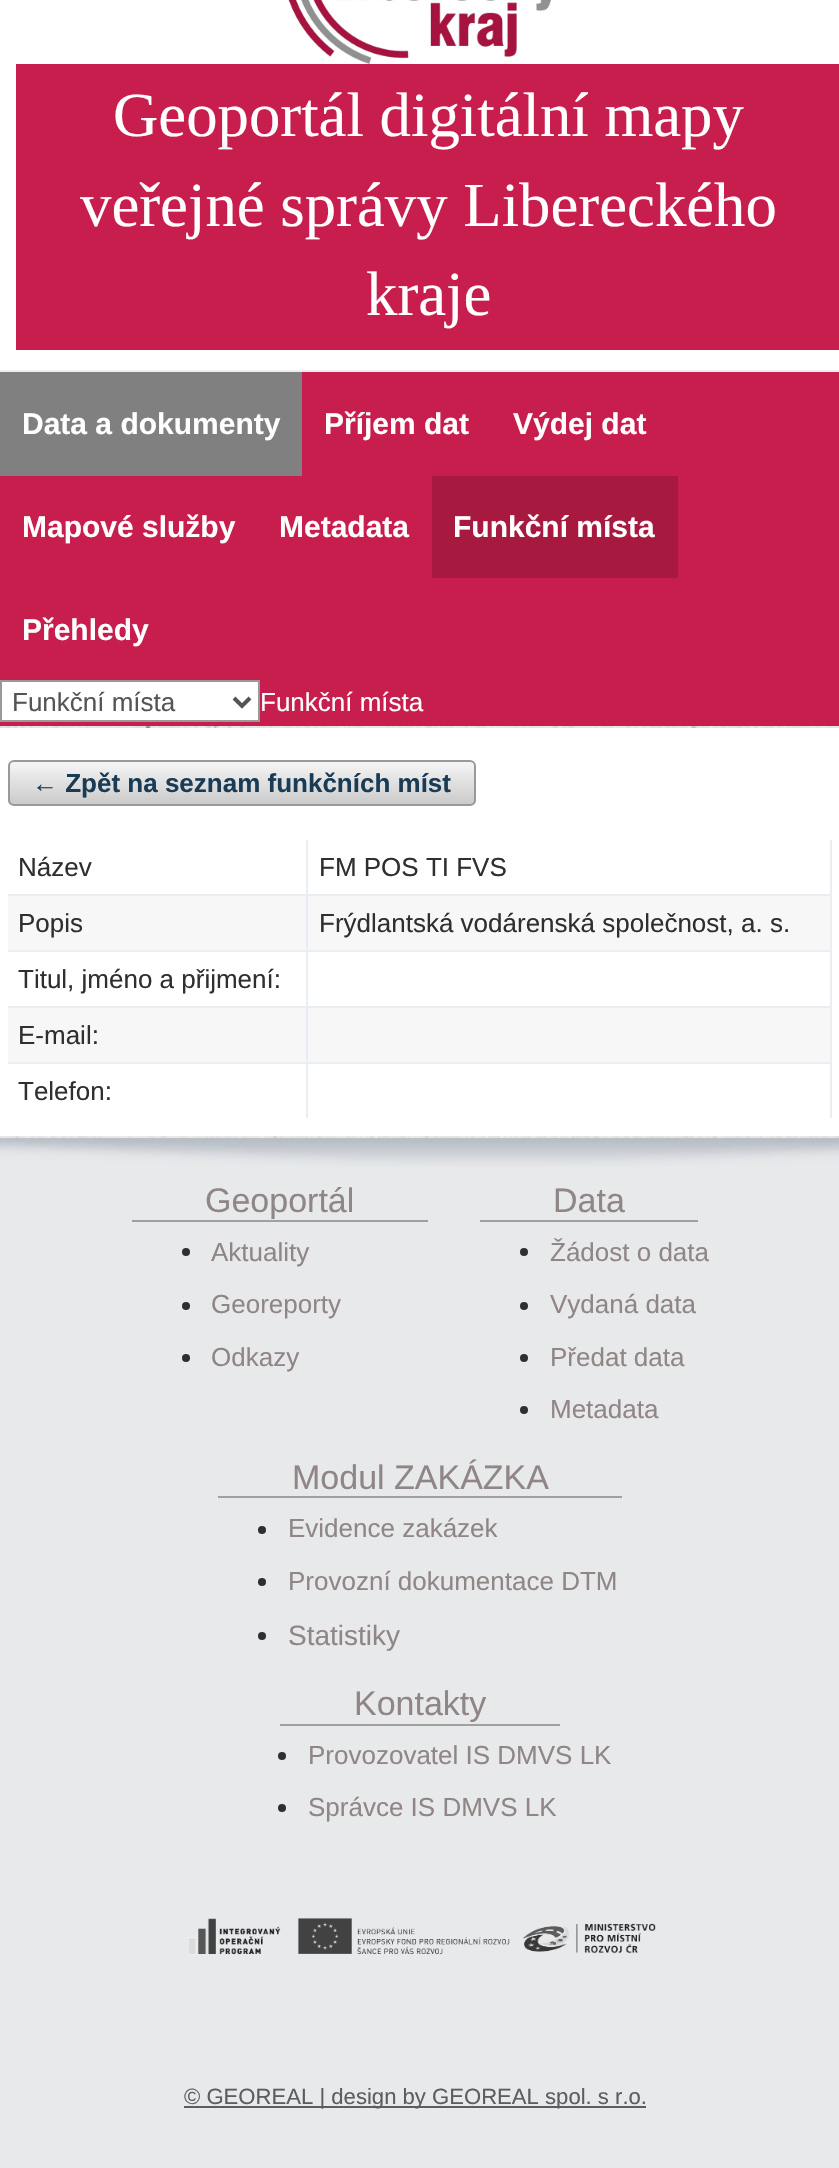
void draw(SkCanvas* c) {
SkPaint p;
p.setAntiAlias(true);
auto F=[&](const char* family, int weight, float size, bool italic = false){SkFontStyle style(weight, SkFontStyle::kNormal_Width,italic ? SkFontStyle::kItalic_Slant : SkFontStyle::kUpright_Slant);SkFont result(fontMgr->matchFamilyStyle(family, style), size);result.setSubpixel(true);return result;};
auto T=[&](const char* s, float x, float y, const SkFont& font){c->drawString(s, x, y, font, p);};
auto R=[&](float x, float y, float w, float h){c->drawRect(SkRect::MakeXYWH(x, y, w, h), p);};
auto I=[&](const char* path, float x, float y, float w, float h){auto image = SkImages::DeferredFromEncodedData(SkData::MakeFromFileName(path));c->drawImageRect(image, SkRect::MakeXYWH(x, y, w, h), SkSamplingOptions());};
auto P=[&](const char* data, bool evenOdd = false){SkPath result = *SkParsePath::FromSVGString(data);if (evenOdd) result.setFillType(SkPathFillType::kEvenOdd);return result;};
c->clear(0xffffffff);
I("1.png",0,726,839,412);
I("2.png",288,0,263,64);
p.setColor(0xffc81e4d);
R(16,64,823,286);
auto f1 = F("Liberation Serif",400,62.75);
p.setColor(0xffffffff);
T("Geoportál digitální mapy",113,136,f1);
T("veřejné správy Libereckého",80,226,f1);
T("kraje",366,315,f1);
p.setColor(0xffc81e4d);
R(0,372,839,354);
p.setColor(0xffeeeeee);
R(0,370,839,2);
p.setColor(0xff808080);
R(0,372,302,104);
auto f2 = F("Liberation Sans",700,30);
p.setColor(0xffffffff);
T("Data a dokumenty",22,434,f2);
T("Příjem dat",324,434,f2);
T("Výdej dat",513,434,f2);
T("Mapové služby",22,537,f2);
T("Metadata",279,537,f2);
p.setColor(0xffa8193f);
R(432,476,246,102);
p.setColor(0xffffffff);
T("Funkční místa",453,537,f2);
T("Přehledy",22,640,f2);
c->drawRect(SkRect::MakeXYWH(1,681,258,40),p);
p.setStroke(true);
p.setStrokeWidth(2);
p.setColor(0xff999999);
c->drawRect(SkRect::MakeXYWH(1,681,258,40),p);
p.setStrokeWidth(4);
p.setColor(0xff555555);
c->drawPath(P("M234 698l8 8l8-8"),p);
auto f3 = F("Liberation Sans",400,26);
p.setStroke(false);
T("Funkční místa",12,711,f3);
p.setColor(0xffffffff);
T("Funkční místa",260,711,f3);
R(0,728,839,408);
c->save();
c->clipPath(P("M14 760h456c3.5 0 6 2.5 6 6v34c0 3.5-2.5 6-6 6h-456c-3.5 0-6-2.5-6-6v-34c0-3.5 2.5-6 6-6z"),true);
{
const SkColor colors[] = {0xfff5f5f5,0xffcbcbcb};
const float stops[] = {0,1};
const SkPoint ends[] = {{10,762}, {10,804}};
p.setShader(SkGradientShader::MakeLinear(ends, colors, stops, 2, SkTileMode::kClamp));
p.setAlpha(255);
}
R(8,762,468,42);
c->restore();
p.setStroke(true);
p.setStrokeWidth(2);
p.setShader(nullptr);
p.setColor(0xff999999);
c->drawRoundRect(SkRect::MakeXYWH(9,761,466,44),5,5,p);
auto f4 = F("Liberation Sans",700,26);
p.setStroke(false);
p.setColor(0xff193b55);
T("← Zpět na seznam funkčních míst",32,792,f4);
p.setColor(0xffe8eef4);
R(306,840,2,56);
R(8,894,300,2);
p.setColor(0xff302e2f);
T("Název",18,876,f3);
p.setColor(0xffe8eef4);
R(830,840,2,278);
R(308,894,524,2);
p.setColor(0xff302e2f);
T("FM POS TI FVS",319,876,f3);
p.setColor(0xfff7f7f7);
R(8,896,822,54);
p.setColor(0xffe8eef4);
R(306,896,2,112);
R(8,950,824,2);
p.setColor(0xff302e2f);
T("Popis",18,932,f3);
T("Frýdlantská vodárenská společnost, a. s.",319,932,f3);
p.setColor(0xffe8eef4);
R(8,1006,824,2);
p.setColor(0xff302e2f);
T("Titul, jméno a přijmení:",18,988,f3);
p.setColor(0xfff7f7f7);
R(8,1008,822,54);
p.setColor(0xffe8eef4);
R(306,1008,2,110);
R(8,1062,824,2);
p.setColor(0xff302e2f);
T("E-mail:",18,1044,f3);
T("Telefon:",18,1100,f3);
p.setColor(0xffe8e9eb);
R(0,1167,839,1001);
I("3.png",0,1138,839,29);
auto f5 = F("Liberation Sans",400,34);
p.setColor(0xff908686);
T("Geoportál",205,1212,f5);
p.setColor(0xffa0a0a0);
R(132,1220,296,2);
p.setColor(0xff2e2f2f);
c->drawCircle(186,1252,4,p);
p.setColor(0xff908686);
T("Aktuality",211,1261,f3);
p.setColor(0xff2e2f2f);
c->drawCircle(186,1306,4,p);
p.setColor(0xff908686);
T("Georeporty",211,1313,f3);
p.setColor(0xff2e2f2f);
c->drawCircle(186,1358,4,p);
p.setColor(0xff908686);
T("Odkazy",211,1366,f3);
T("Data",553,1212,f5);
p.setColor(0xffa0a0a0);
R(480,1220,218,2);
p.setColor(0xff2e2f2f);
c->drawCircle(524,1252,4,p);
p.setColor(0xff908686);
T("Žádost o data",550,1261,f3);
p.setColor(0xff2e2f2f);
c->drawCircle(524,1306,4,p);
p.setColor(0xff908686);
T("Vydaná data",550,1313,f3);
p.setColor(0xff2e2f2f);
c->drawCircle(524,1358,4,p);
p.setColor(0xff908686);
T("Předat data",550,1366,f3);
p.setColor(0xff2e2f2f);
c->drawCircle(524,1410,4,p);
p.setColor(0xff908686);
T("Metadata",550,1418,f3);
T("Modul ZAKÁZKA",292,1489,f5);
p.setColor(0xffa0a0a0);
R(218,1496,404,2);
p.setColor(0xff2e2f2f);
c->drawCircle(262,1530,4,p);
p.setColor(0xff908686);
T("Evidence zakázek",288,1537,f3);
p.setColor(0xff2e2f2f);
c->drawCircle(262,1582,4,p);
p.setColor(0xff908686);
T("Provozní dokumentace DTM",288,1590,f3);
p.setColor(0xff2e2f2f);
c->drawCircle(262,1636,4,p);
auto f6 = F("Liberation Sans",400,28);
p.setColor(0xff908686);
T("Statistiky",288,1645,f6);
T("Kontakty",354,1715,f5);
p.setColor(0xffa0a0a0);
R(280,1724,280,2);
p.setColor(0xff2e2f2f);
c->drawCircle(282,1756,4,p);
p.setColor(0xff908686);
T("Provozovatel IS DMVS LK",308,1764,f3);
p.setColor(0xff2e2f2f);
c->drawCircle(282,1808,4,p);
p.setColor(0xff908686);
T("Správce IS DMVS LK",308,1816,f3);
I("4.png",188,1918,468,37);
p.setColor(0xff5d5d5e);
R(184,2106,462,2);
auto f7 = F("Liberation Sans",400,22.1);
p.setColor(0xff5c5d5d);
T("© GEOREAL | design by GEOREAL spol. s r.o.",184,2104,f7);
}
